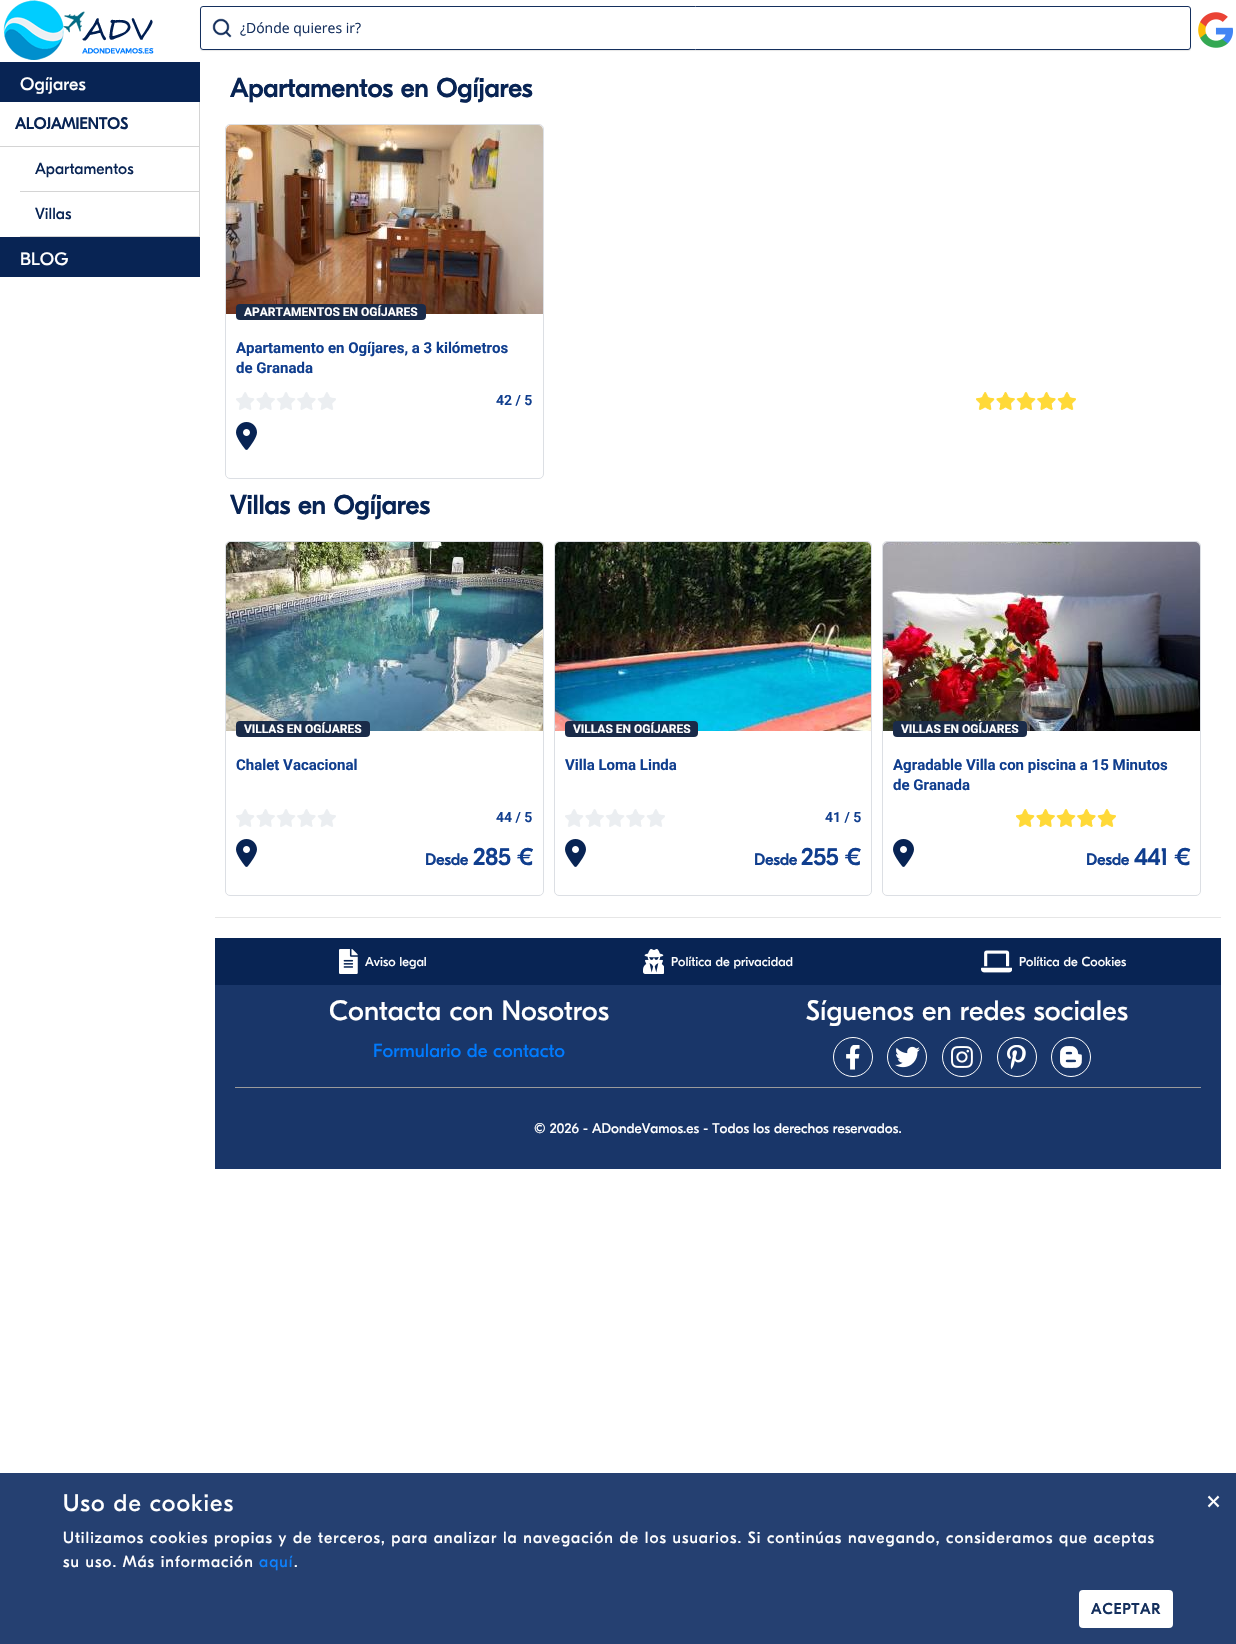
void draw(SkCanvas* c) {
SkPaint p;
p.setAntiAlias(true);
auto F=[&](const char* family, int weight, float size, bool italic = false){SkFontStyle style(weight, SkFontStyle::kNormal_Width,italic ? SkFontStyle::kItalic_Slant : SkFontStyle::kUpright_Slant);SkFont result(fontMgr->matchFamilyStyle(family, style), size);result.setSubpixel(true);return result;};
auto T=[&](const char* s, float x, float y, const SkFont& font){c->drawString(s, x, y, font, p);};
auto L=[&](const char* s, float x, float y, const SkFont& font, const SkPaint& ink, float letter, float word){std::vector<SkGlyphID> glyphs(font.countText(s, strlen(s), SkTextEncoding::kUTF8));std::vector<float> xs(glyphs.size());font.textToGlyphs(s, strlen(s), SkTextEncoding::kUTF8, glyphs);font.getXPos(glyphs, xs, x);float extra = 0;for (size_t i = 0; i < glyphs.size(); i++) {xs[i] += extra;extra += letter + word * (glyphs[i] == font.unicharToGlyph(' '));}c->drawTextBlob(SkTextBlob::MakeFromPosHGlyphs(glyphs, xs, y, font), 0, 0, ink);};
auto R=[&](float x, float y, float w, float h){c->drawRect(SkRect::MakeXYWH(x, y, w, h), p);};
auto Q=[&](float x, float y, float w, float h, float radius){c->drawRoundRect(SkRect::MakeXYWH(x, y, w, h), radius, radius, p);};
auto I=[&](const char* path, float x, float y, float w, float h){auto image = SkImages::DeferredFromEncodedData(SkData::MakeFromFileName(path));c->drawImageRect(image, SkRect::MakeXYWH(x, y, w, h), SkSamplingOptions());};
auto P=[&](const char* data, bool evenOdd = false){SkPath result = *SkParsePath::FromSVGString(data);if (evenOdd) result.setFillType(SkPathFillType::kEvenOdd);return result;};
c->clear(0xffffffff);
I("1.png",2,0,152,60);
c->save();
c->clipPath(P("M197 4h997v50h-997zm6 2h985c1.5 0 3 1.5 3 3v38c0 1.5-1.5 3-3 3h-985c-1.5 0-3-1.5-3-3v-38c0-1.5 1.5-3 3-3z",true),true);
p.setColor(0x1a0d0d0d);
p.setMaskFilter(SkMaskFilter::MakeBlur(kNormal_SkBlurStyle, .5));
c->drawRoundRect(SkRect::MakeXYWH(200,7,991,44),3,3,p);
p.setMaskFilter(nullptr);
c->restore();
p.setColor(0xccffffff);
c->drawRoundRect(SkRect::MakeXYWH(200.5,6.5,990,43),2.5,2.5,p);
p.setStroke(true);
p.setStrokeWidth(1);
p.setColor(0xff142f5d);
c->drawRoundRect(SkRect::MakeXYWH(200.5,6.5,990,43),2.5,2.5,p);
I("2.png",212,18,20,20);
auto f1 = F("Open Sans",400,14);
p.setStroke(false);
T("¿Dónde quieres ir?",240,33,f1);
I("3.png",1198,12,35,36);
p.setColor(0xff082454);
R(0,62,200,40);
auto f2 = F("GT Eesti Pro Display",400,18);
p.setColor(0xffffffff);
T("Ogíjares",20,90,f2);
p.setColor(0xffd4d4d4);
R(199,102,1,135);
R(0,146,199,1);
auto f3 = F("GT Eesti Pro Display",700,16);
p.setColor(0xff082454);
T("ALOJAMIENTOS",15,129,f3);
p.setColor(0xffd4d4d4);
R(20,191,179,1);
auto f4 = F("GT Eesti Pro Display",400,16);
p.setColor(0xff082454);
T("Apartamentos",35,174,f4);
p.setColor(0xffd4d4d4);
R(20,236,179,1);
p.setColor(0xff082454);
T("Villas",35,219,f4);
R(0,237,200,40);
p.setColor(0xffffffff);
T("BLOG",20,265,f2);
auto f5 = F("GT Eesti Pro Display",700,26.4);
p.setColor(0xff082454);
T("Apartamentos en Ogíjares",230,97,f5);
p.setStroke(true);
p.setColor(0xffdcdfe4);
c->drawRoundRect(SkRect::MakeXYWH(225.5,124.5,318,354),4.5,4.5,p);
I("4.png",226,125,317,189);
p.setStroke(false);
p.setColor(0xff1a2b49);
Q(236,304,190,16,4);
auto f6 = F("Roboto",700,12);
p.setColor(0xffffffff);
T("APARTAMENTOS EN OGÍJARES",244,316,f6);
auto f7 = F("Roboto",700,15);
p.setColor(0xff103e8e);
T("Apartamento en Ogíjares, a 3 kilómetros",236,353,f7);
T("de Granada",236,373,f7);
I("5.png",236,392,100,18);
auto f8 = F("Roboto",600,14);
T("42 / 5",496,405,f8);
I("6.png",976,392,100,18);
I("7.png",236,422,21,28);
p.setColor(0xff082454);
T("Villas en Ogíjares",230,514,f5);
p.setStroke(true);
p.setColor(0xffdcdfe4);
c->drawRoundRect(SkRect::MakeXYWH(225.5,541.5,318,354),4.5,4.5,p);
I("8.png",226,542,317,189);
p.setStroke(false);
p.setColor(0xff1a2b49);
Q(236,721,134,16,4);
p.setColor(0xffffffff);
T("VILLAS EN OGÍJARES",244,733,f6);
p.setColor(0xff103e8e);
T("Chalet Vacacional",236,770,f7);
I("5.png",236,809,100,18);
T("44 / 5",496,822,f8);
p.setStroke(true);
p.setColor(0xffdcdfe4);
c->drawRoundRect(SkRect::MakeXYWH(882.5,541.5,318,354),4.5,4.5,p);
I("9.png",1016,809,100,18);
I("7.png",236,839,21,28);
p.setStroke(false);
p.setColor(0xff103e8e);
T("Desde",425,865,f3);
auto f9 = F("GT Eesti Pro Display",700,24);
T("285 €",473,865,f9);
p.setStroke(true);
p.setColor(0xffdcdfe4);
c->drawRoundRect(SkRect::MakeXYWH(554.5,541.5,317,354),4.5,4.5,p);
I("10.png",555,542,316,189);
p.setStroke(false);
p.setColor(0xff1a2b49);
Q(565,721,133,16,4);
p.setColor(0xffffffff);
T("VILLAS EN OGÍJARES",573,733,f6);
p.setColor(0xff103e8e);
T("Villa Loma Linda",565,770,f7);
I("11.png",565,809,100,18);
T("41 / 5",825,822,f8);
I("7.png",565,839,21,28);
T("Desde",754,865,f3);
T("255 €",801,865,f9);
I("12.png",883,542,317,189);
p.setColor(0xff1a2b49);
Q(893,721,134,16,4);
p.setColor(0xffffffff);
T("VILLAS EN OGÍJARES",901,733,f6);
p.setColor(0xff103e8e);
T("Agradable Villa con piscina a 15 Minutos",893,770,f7);
T("de Granada",893,790,f7);
I("7.png",893,839,21,28);
T("Desde",1086,865,f3);
T("441 €",1134,865,f9);
p.setColor(0xffe6e6e6);
R(215,917,1006,1);
p.setColor(0xff193669);
R(215,985,1006,184);
p.setColor(0xff082454);
R(215,938,1006,47);
I("13.png",339,949,19,25);
auto f10 = F("GT Eesti Pro Display",400,13);
p.setColor(0xffffffff);
T("Aviso legal",365,966,f10);
I("14.png",643,949,21,25);
T("Política de privacidad",671,966,f10);
I("15.png",981,950,31,23);
T("Política de Cookies",1019,966,f10);
auto f11 = F("GT Eesti Pro Display",400,28);
T("Contacta con Nosotros",329,1020,f11);
auto f12 = F("GT Eesti Pro Display",400,19);
p.setColor(0xff007bff);
T("Formulario de contacto",373,1057,f12);
p.setColor(0xffffffff);
T("Síguenos en redes sociales",806,1020,f11);
p.setStroke(true);
c->drawCircle(853,1057,19.5,p);
I("16.png",846,1045,14,25);
c->drawCircle(907,1057,19.5,p);
I("17.png",895,1046,25,22);
c->drawCircle(962,1057,19.5,p);
I("18.png",951,1046,22,22);
c->drawCircle(1017,1057,19.5,p);
I("19.png",1007,1045,19,25);
c->drawCircle(1071,1057,19.5,p);
I("20.png",1060,1046,22,22);
p.setStroke(false);
p.setColor(0xff9b9b9b);
R(235,1087,966,1);
auto f13 = F("GT Eesti Pro Display",400,14);
p.setColor(0xffffffff);
T("© 2026 - ADondeVamos.es - Todos los derechos reservados.",534,1133,f13);
p.setColor(0xff254071);
R(0,1473,1236,171);
auto f14 = F("GT Eesti Pro Display",400,24);
p.setColor(0xffffffff);
L("Uso de cookies",63,1511,f14,p,1,0);
L("Utilizamos cookies propias y de terceros, para analizar la navegación de los usuarios. Si continúas navegando, consideramos que aceptas",63,1543,f4,p,1,0);
L("su uso. Más información",63,1567,f4,p,1,0);
p.setColor(0xff0d82ff);
L("aquí",259,1567,f4,p,1,0);
p.setColor(0xffffffff);
L(".",294,1567,f4,p,1,0);
Q(1079,1590,94,38,4);
auto f15 = F("GT Eesti Pro Display",700,15);
p.setColor(0xff142f5d);
L("ACEPTAR",1091,1614,f15,p,1,0);
p.setColor(0xffffffff);
T("×",1206,1509,f9);
}
